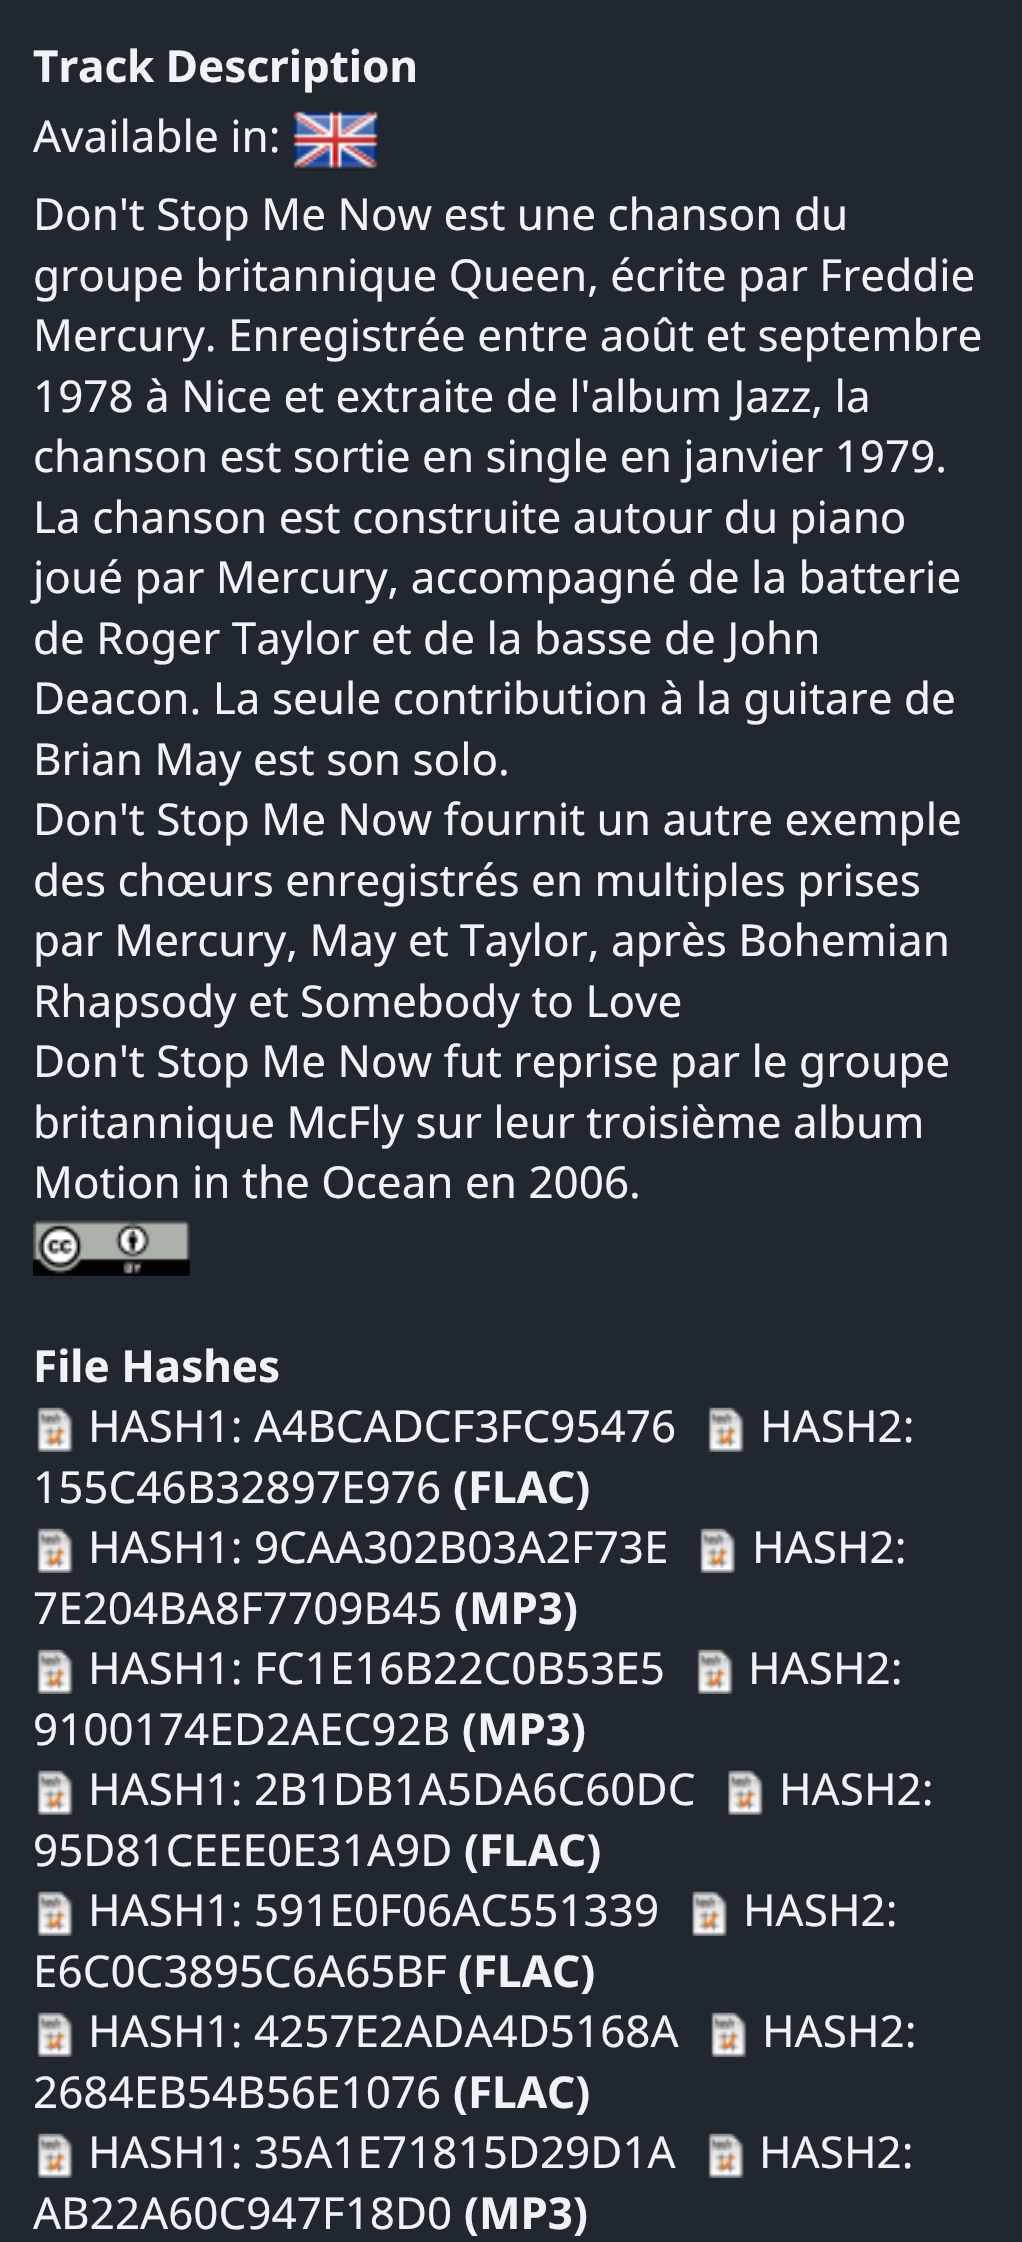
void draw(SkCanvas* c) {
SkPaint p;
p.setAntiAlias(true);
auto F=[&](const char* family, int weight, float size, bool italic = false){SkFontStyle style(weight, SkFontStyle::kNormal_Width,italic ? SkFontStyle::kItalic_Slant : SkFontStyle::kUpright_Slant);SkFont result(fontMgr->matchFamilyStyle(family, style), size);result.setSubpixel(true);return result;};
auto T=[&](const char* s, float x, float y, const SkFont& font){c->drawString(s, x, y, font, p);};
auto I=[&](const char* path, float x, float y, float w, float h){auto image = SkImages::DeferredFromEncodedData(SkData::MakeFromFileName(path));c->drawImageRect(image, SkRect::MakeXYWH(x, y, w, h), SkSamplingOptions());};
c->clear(0xff20272f);
auto f1 = F("Noto Sans",700,44);
p.setColor(0xfff0f2f5);
T("Track Description",33,82,f1);
auto f2 = F("Noto Sans",400,44);
T("Available in:",33,152,f2);
I("1.png",293,111,85,60);
T("Don't Stop Me Now est une chanson du",33,230,f2);
T("groupe britannique Queen, écrite par Freddie",33,291,f2);
T("Mercury. Enregistrée entre août et septembre",33,351,f2);
T("1978 à Nice et extraite de l'album Jazz, la",33,412,f2);
T("chanson est sortie en single en janvier 1979.",33,472,f2);
T("La chanson est construite autour du piano",33,533,f2);
T("joué par Mercury, accompagné de la batterie",33,593,f2);
T("de Roger Taylor et de la basse de John",33,654,f2);
T("Deacon. La seule contribution à la guitare de",33,714,f2);
T("Brian May est son solo.",33,775,f2);
T("Don't Stop Me Now fournit un autre exemple",33,835,f2);
T("des chœurs enregistrés en multiples prises",33,896,f2);
T("par Mercury, May et Taylor, après Bohemian",33,956,f2);
T("Rhapsody et Somebody to Love",33,1017,f2);
T("Don't Stop Me Now fut reprise par le groupe",33,1077,f2);
T("britannique McFly sur leur troisième album",33,1138,f2);
T("Motion in the Ocean en 2006.",33,1198,f2);
I("2.png",33,1220,157,56);
T("File Hashes",33,1382,f1);
I("3.png",37,1407,36,45);
T("HASH1: A4BCADCF3FC95476",88,1442,f2);
I("4.png",708,1407,36,45);
T("HASH2:",760,1442,f2);
T("155C46B32897E976",33,1503,f2);
T("(FLAC)",453,1503,f1);
I("3.png",37,1528,36,45);
T("HASH1: 9CAA302B03A2F73E",88,1563,f2);
I("5.png",700,1528,36,45);
T("HASH2:",752,1563,f2);
T("7E204BA8F7709B45",33,1624,f2);
T("(MP3)",454,1624,f1);
I("3.png",37,1649,36,45);
T("HASH1: FC1E16B22C0B53E5",88,1684,f2);
I("4.png",697,1649,36,45);
T("HASH2:",748,1684,f2);
T("9100174ED2AEC92B",33,1745,f2);
T("(MP3)",462,1745,f1);
I("3.png",37,1770,36,45);
T("HASH1: 2B1DB1A5DA6C60DC",88,1805,f2);
I("6.png",728,1770,35,45);
T("HASH2:",779,1805,f2);
T("95D81CEEE0E31A9D",33,1866,f2);
T("(FLAC)",464,1866,f1);
I("3.png",37,1891,36,45);
T("HASH1: 591E0F06AC551339",88,1926,f2);
I("7.png",692,1891,35,45);
T("HASH2:",743,1926,f2);
T("E6C0C3895C6A65BF",33,1987,f2);
T("(FLAC)",458,1987,f1);
I("3.png",37,2012,36,45);
T("HASH1: 4257E2ADA4D5168A",88,2047,f2);
I("5.png",711,2012,36,45);
T("HASH2:",762,2047,f2);
T("2684EB54B56E1076",33,2108,f2);
T("(FLAC)",453,2108,f1);
I("3.png",37,2133,36,45);
T("HASH1: 35A1E71815D29D1A",88,2168,f2);
I("4.png",708,2133,36,45);
T("HASH2:",759,2168,f2);
T("AB22A60C947F18D0",33,2229,f2);
T("(MP3)",464,2229,f1);
}
